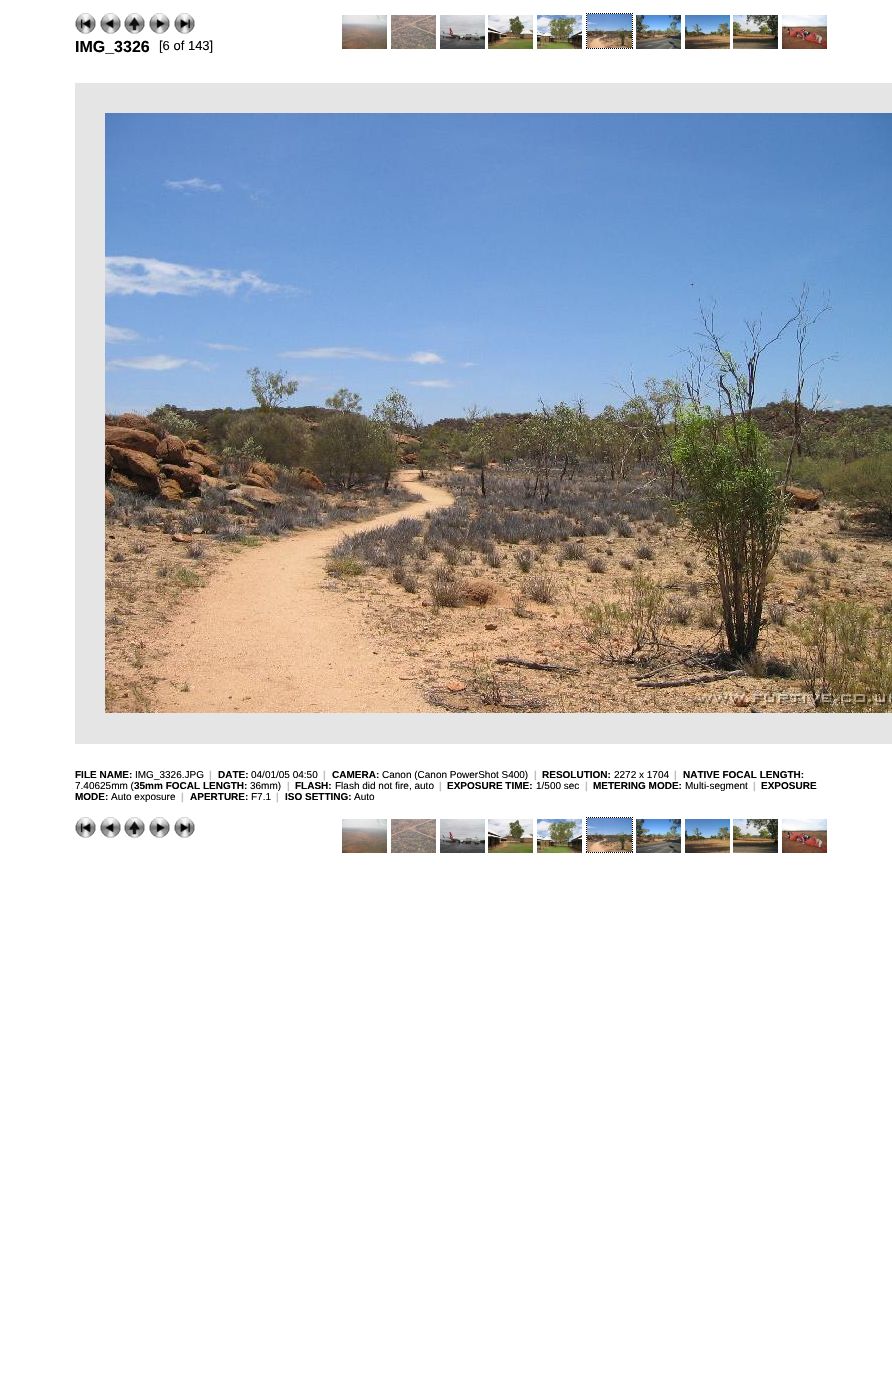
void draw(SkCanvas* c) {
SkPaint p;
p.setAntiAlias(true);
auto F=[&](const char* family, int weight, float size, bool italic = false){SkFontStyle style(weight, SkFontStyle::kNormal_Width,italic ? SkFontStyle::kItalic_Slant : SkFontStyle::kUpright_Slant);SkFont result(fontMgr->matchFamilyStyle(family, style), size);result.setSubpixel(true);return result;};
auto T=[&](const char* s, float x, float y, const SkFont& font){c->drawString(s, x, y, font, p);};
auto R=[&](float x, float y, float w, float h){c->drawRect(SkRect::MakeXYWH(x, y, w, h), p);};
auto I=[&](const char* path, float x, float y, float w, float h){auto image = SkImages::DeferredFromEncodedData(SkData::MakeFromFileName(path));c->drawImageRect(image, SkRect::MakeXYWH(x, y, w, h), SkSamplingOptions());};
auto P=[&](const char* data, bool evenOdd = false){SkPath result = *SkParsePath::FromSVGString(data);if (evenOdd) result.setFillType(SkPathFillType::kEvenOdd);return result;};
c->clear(0xffffffff);
I("1.png",75,13,21,21);
I("2.png",100,13,21,21);
I("3.png",124,13,21,21);
I("4.png",149,13,21,21);
I("5.png",174,13,21,21);
p.setStroke(true);
p.setStrokeWidth(1);
p.setColor(0xff000000);
p.setPathEffect(SkDashPathEffect::Make({{1,1}}, 0));
c->drawPath(P("M586 13.5h47m-.5-.5v36m-46.5-.5h47m-46.5-35.5v36"),p);
p.setPathEffect(nullptr);
I("6.png",342,15,45,34);
I("7.png",391,15,45,34);
I("8.png",440,15,45,34);
I("9.png",488,15,45,34);
I("10.png",537,15,45,34);
I("11.png",587,14,45,34);
I("12.png",636,15,45,34);
I("13.png",685,15,45,34);
I("14.png",733,15,45,34);
I("15.png",782,15,45,34);
auto f1 = F("Liberation Sans",700,16);
p.setStroke(false);
T("IMG_3326",75,52,f1);
auto f2 = F("Liberation Sans",400,13);
T("[6 of 143]",159,50,f2);
p.setColor(0xffe5e5e5);
R(75,83,817,661);
I("16.png",105,113,787,600);
auto f3 = F("Liberation Sans",700,10);
p.setColor(0xff000000);
T("FILE NAME:",75,778,f3);
auto f4 = F("Liberation Sans",400,10);
T("IMG_3326.JPG",135,778,f4);
p.setColor(0xffc0c0c0);
T("|",209,778,f3);
p.setColor(0xff000000);
T("DATE:",218,778,f3);
T("04/01/05 04:50",251,778,f4);
p.setColor(0xffc0c0c0);
T("|",323,778,f3);
p.setColor(0xff000000);
T("CAMERA:",332,778,f3);
T("Canon (Canon PowerShot S400)",382,778,f4);
p.setColor(0xffc0c0c0);
T("|",534,778,f3);
p.setColor(0xff000000);
T("RESOLUTION:",542,778,f3);
T("2272 x 1704",614,778,f4);
p.setColor(0xffc0c0c0);
T("|",674,778,f3);
p.setColor(0xff000000);
T("NATIVE FOCAL LENGTH:",683,778,f3);
T("7.40625mm (",75,789,f4);
T("35mm FOCAL LENGTH:",134,789,f3);
T("36mm)",250,789,f4);
p.setColor(0xffc0c0c0);
T("|",287,789,f3);
p.setColor(0xff000000);
T("FLASH:",295,789,f3);
T("Flash did not fire, auto",335,789,f4);
p.setColor(0xffc0c0c0);
T("|",439,789,f3);
p.setColor(0xff000000);
T("EXPOSURE TIME:",447,789,f3);
T("1/500 sec",536,789,f4);
p.setColor(0xffc0c0c0);
T("|",585,789,f3);
p.setColor(0xff000000);
T("METERING MODE:",593,789,f3);
T("Multi-segment",685,789,f4);
p.setColor(0xffc0c0c0);
T("|",753,789,f3);
p.setColor(0xff000000);
T("EXPOSURE",761,789,f3);
T("MODE:",75,800,f3);
T("Auto exposure",111,800,f4);
p.setColor(0xffc0c0c0);
T("|",181,800,f3);
p.setColor(0xff000000);
T("APERTURE:",190,800,f3);
T("F7.1",251,800,f4);
p.setColor(0xffc0c0c0);
T("|",276,800,f3);
p.setColor(0xff000000);
T("ISO SETTING:",285,800,f3);
T("Auto",354,800,f4);
I("1.png",75,817,21,21);
I("2.png",100,817,21,21);
I("3.png",124,817,21,21);
I("4.png",149,817,21,21);
I("5.png",174,817,21,21);
p.setStroke(true);
p.setPathEffect(SkDashPathEffect::Make({{1,1}}, 0));
c->drawPath(P("M586 817.5h47m-.5-.5v36m-46.5-.5h47m-46.5-35.5v36"),p);
p.setPathEffect(nullptr);
I("6.png",342,819,45,34);
I("7.png",391,819,45,34);
I("8.png",440,819,45,34);
I("9.png",488,819,45,34);
I("10.png",537,819,45,34);
I("11.png",587,818,45,34);
I("12.png",636,819,45,34);
I("13.png",685,819,45,34);
I("14.png",733,819,45,34);
I("15.png",782,819,45,34);
}
